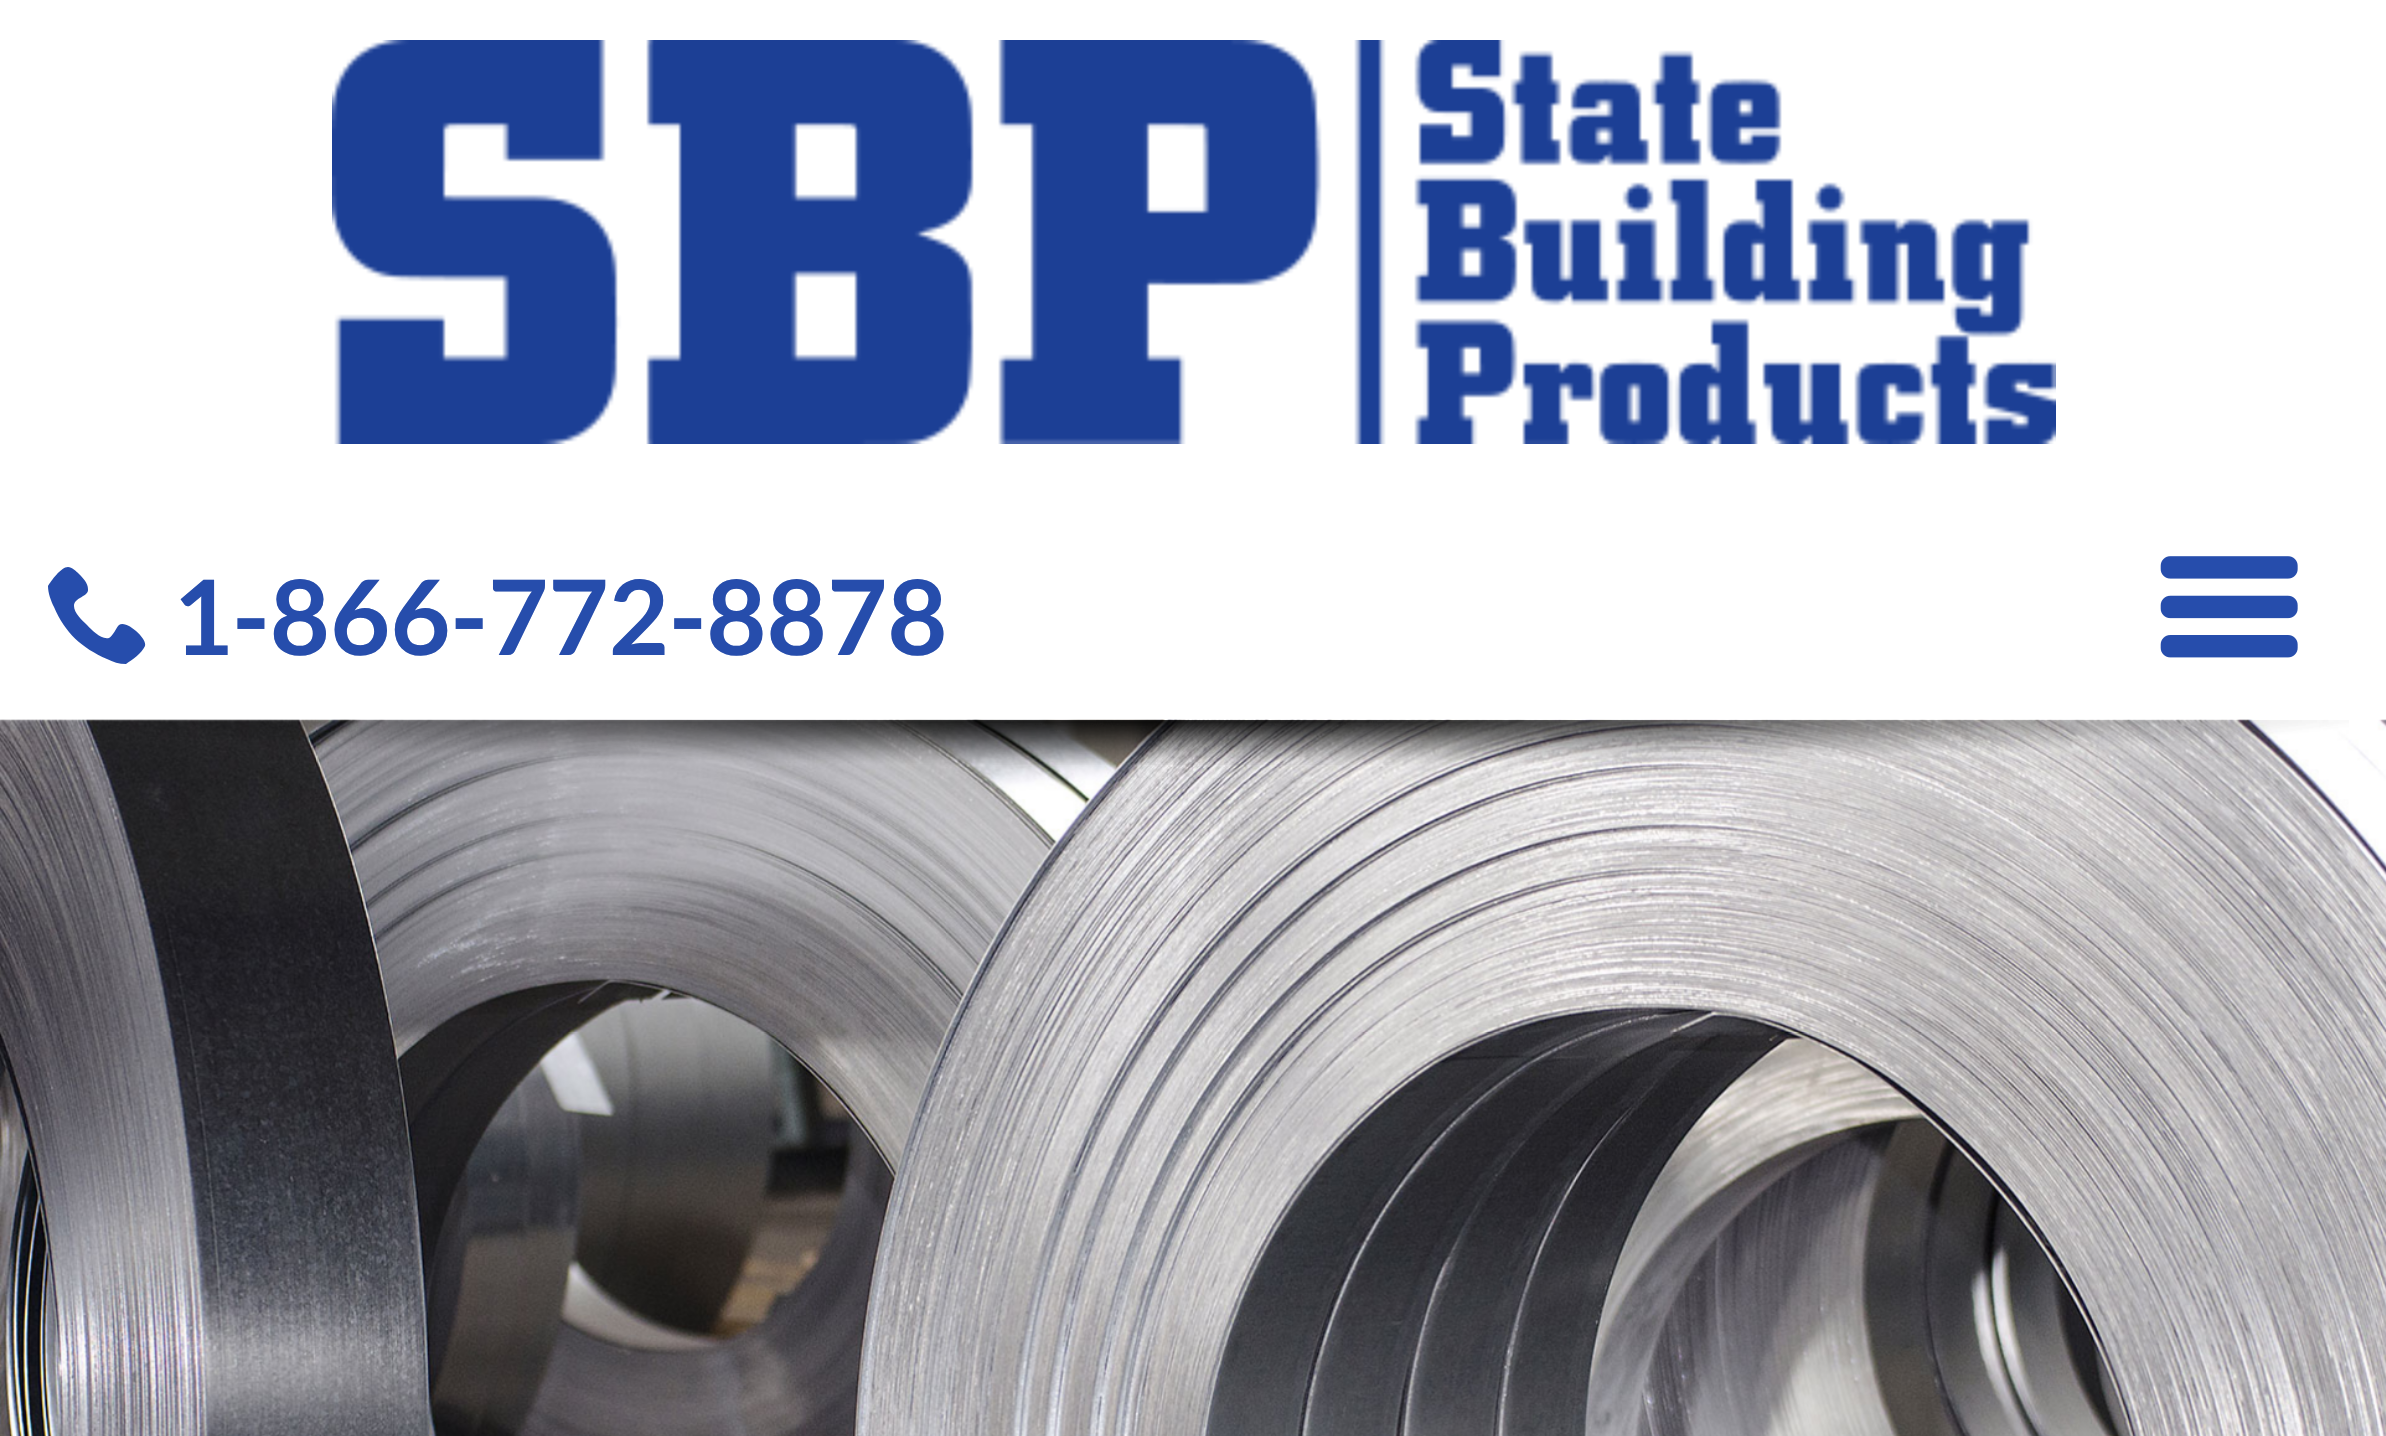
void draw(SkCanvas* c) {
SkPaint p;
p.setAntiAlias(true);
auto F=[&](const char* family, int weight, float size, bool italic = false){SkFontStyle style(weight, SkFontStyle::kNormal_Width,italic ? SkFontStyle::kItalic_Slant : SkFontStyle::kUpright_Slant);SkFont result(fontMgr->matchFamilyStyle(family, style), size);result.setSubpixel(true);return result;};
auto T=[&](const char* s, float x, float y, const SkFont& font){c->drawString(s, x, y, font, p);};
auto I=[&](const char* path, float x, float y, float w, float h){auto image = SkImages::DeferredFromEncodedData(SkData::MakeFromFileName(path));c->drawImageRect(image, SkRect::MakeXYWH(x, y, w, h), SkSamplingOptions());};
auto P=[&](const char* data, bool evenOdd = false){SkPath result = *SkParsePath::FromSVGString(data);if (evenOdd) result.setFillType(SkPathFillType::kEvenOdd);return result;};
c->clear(0xffffffff);
I("1.png",332,40,1724,404);
p.setColor(0xff264dac);
c->drawPath(P("M119 625c-3 3-6 11-10 13c-8 2-17-8-22-13c-5-5-13-12-13-19c0-9 15-9 14-17c0-6-5-11-9-15c-3-3-7-7-11-7c-7 0-17 14-20 19c0 7 3 15 6 21c11 26 28 41 53 52c6 3 12 5 19 5c6-4 16-11 19-18c3-7-19-27-26-21z"),p);
auto f1 = F("Lato",700,104);
T("1-866-772-8878",172,655,f1);
I("2.png",2160,556,138,102);
I("3.png",0,719,2386,717);
I("4.png",63,720,2286,45);
}
